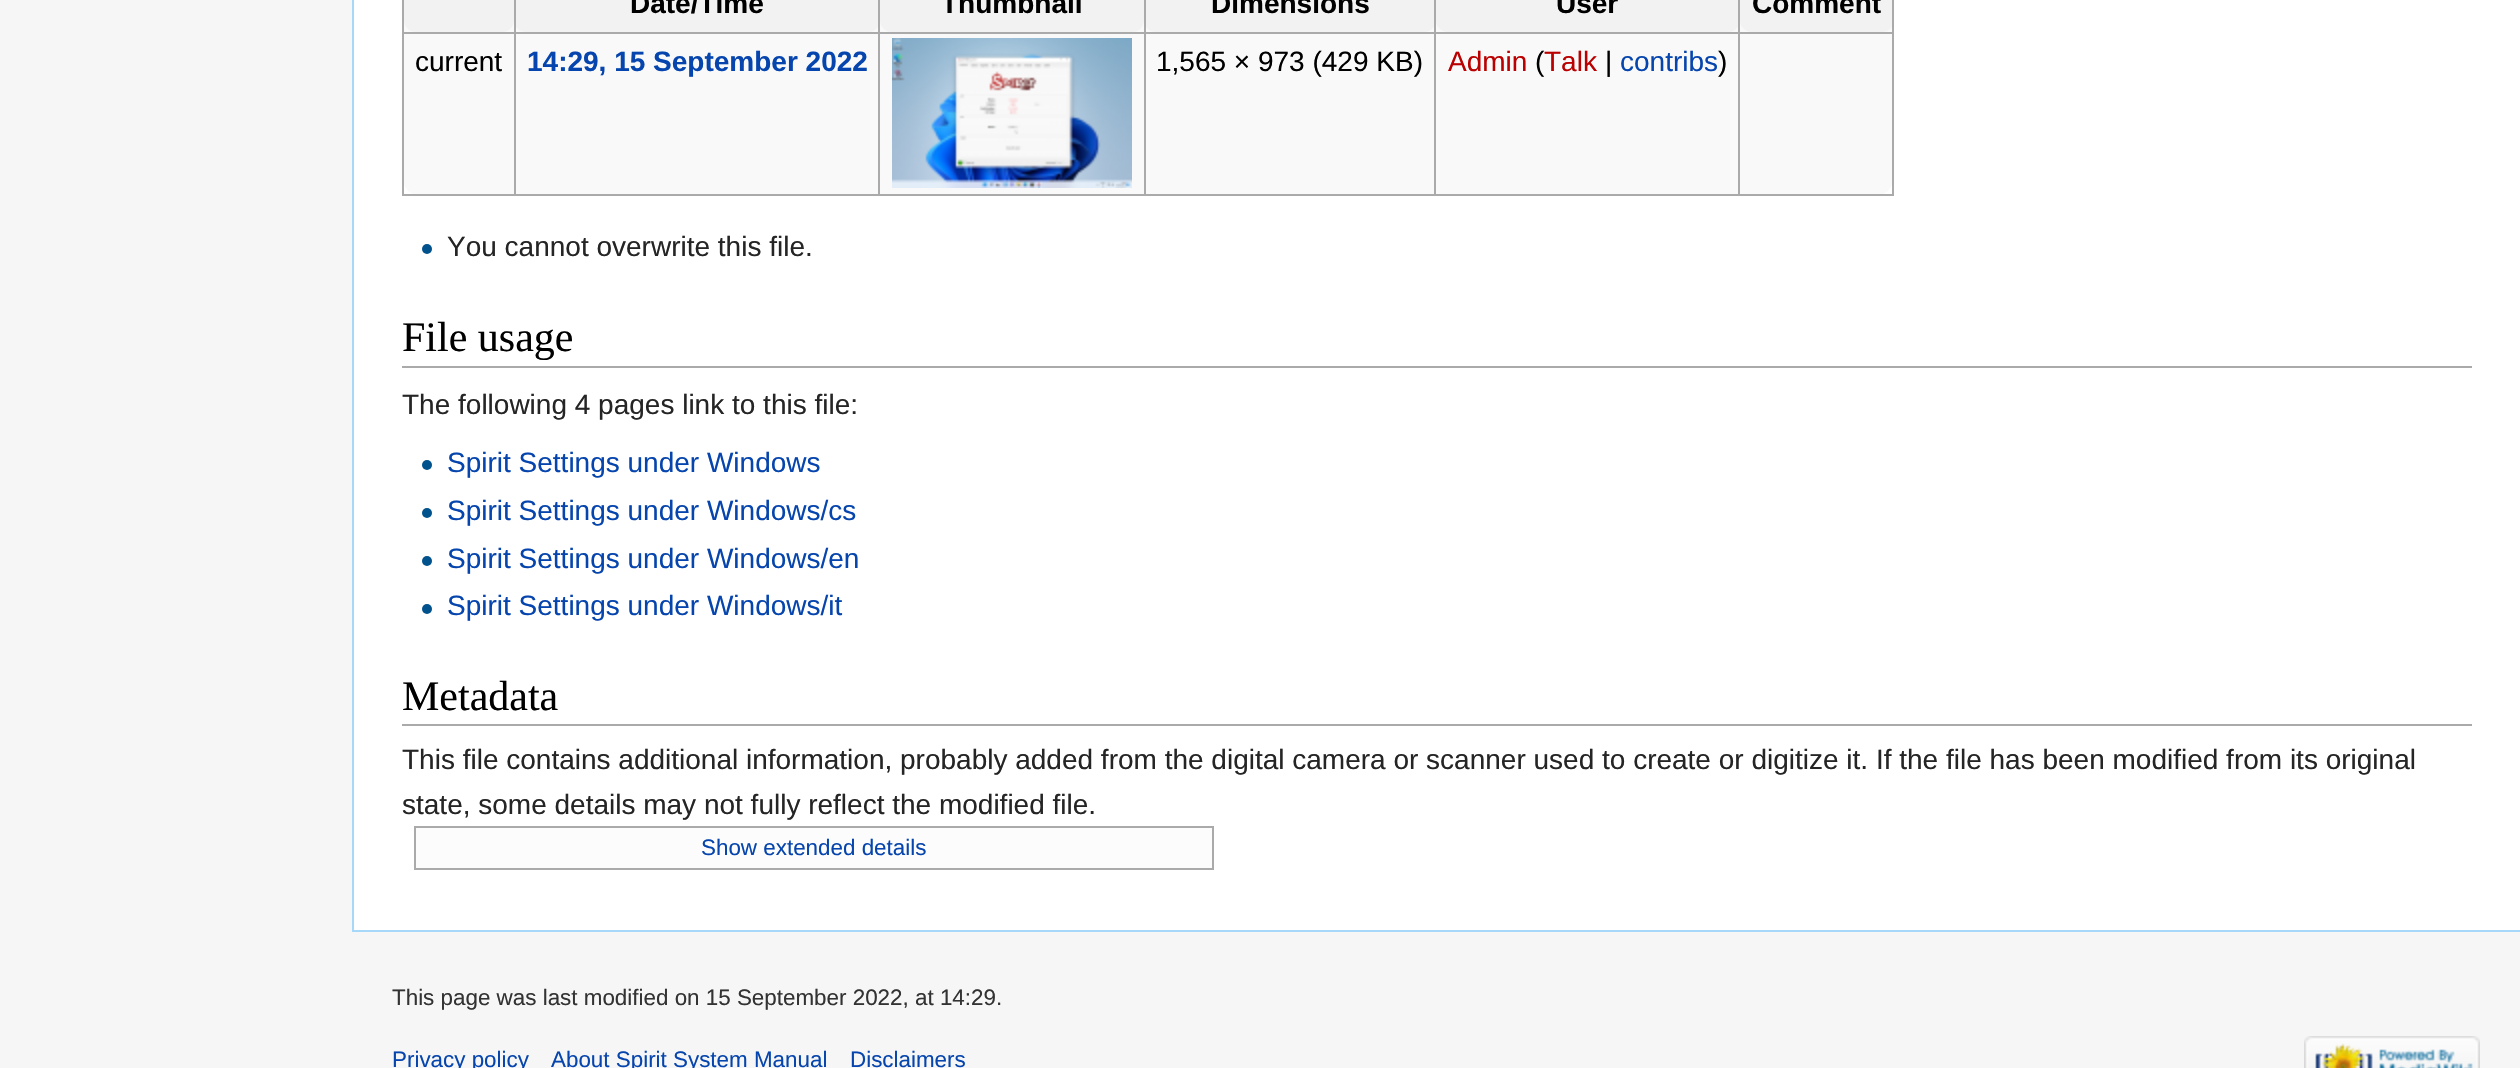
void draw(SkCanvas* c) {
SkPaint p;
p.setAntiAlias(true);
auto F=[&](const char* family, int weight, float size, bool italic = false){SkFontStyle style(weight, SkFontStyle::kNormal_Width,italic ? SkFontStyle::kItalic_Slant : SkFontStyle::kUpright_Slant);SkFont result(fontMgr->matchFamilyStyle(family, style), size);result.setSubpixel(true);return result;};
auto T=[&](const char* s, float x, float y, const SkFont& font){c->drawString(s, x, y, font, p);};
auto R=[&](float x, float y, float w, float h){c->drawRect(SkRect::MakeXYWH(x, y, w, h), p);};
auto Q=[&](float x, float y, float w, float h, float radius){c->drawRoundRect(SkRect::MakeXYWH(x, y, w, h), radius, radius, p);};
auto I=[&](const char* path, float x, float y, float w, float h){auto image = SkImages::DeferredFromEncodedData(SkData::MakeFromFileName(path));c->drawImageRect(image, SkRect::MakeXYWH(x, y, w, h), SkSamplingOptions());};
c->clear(0xfff6f6f6);
p.setColor(0xffffffff);
R(354,0,2166,930);
p.setColor(0xffa7d7f9);
R(352,930,2168,2);
R(352,0,2,932);
p.setColor(0xfff9f9f9);
Q(402,-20,1492,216,20);
p.setColor(0xfff2f2f2);
Q(1740,-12,154,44,12);
p.setColor(0xffaaaaaa);
R(1892,0,2,196);
R(402,194,1492,2);
R(402,0,2,196);
p.setColor(0xfff2f2f2);
Q(404,-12,110,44,12);
Q(514,-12,366,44,12);
p.setColor(0xffaaaaaa);
R(1738,32,156,2);
R(1738,32,2,164);
R(1434,32,306,2);
R(1434,32,2,164);
R(1144,32,292,2);
R(1144,32,2,164);
R(878,32,268,2);
R(878,32,2,164);
R(514,32,366,2);
R(514,32,2,164);
R(402,32,114,2);
R(514,0,2,34);
auto f1 = F("Liberation Sans",700,28);
p.setColor(0xff000000);
T("Date/Time",630,13,f1);
p.setColor(0xfff2f2f2);
Q(880,-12,264,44,12);
p.setColor(0xffaaaaaa);
R(878,0,2,34);
p.setColor(0xff000000);
T("Thumbnail",941,13,f1);
p.setColor(0xfff2f2f2);
Q(1144,-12,292,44,12);
p.setColor(0xffaaaaaa);
R(1144,0,2,34);
p.setColor(0xff000000);
T("Dimensions",1211,13,f1);
p.setColor(0xfff2f2f2);
Q(1436,-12,304,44,12);
p.setColor(0xffaaaaaa);
R(1434,0,2,34);
p.setColor(0xff000000);
T("User",1556,13,f1);
p.setColor(0xffaaaaaa);
R(1738,0,2,34);
p.setColor(0xff000000);
T("Comment",1752,13,f1);
auto f2 = F("Liberation Sans",400,28);
T("current",415,71,f2);
p.setColor(0xff0645ad);
T("14:29, 15 September 2022",527,71,f1);
I("1.png",892,38,240,150);
p.setColor(0xff000000);
T("1,565 × 973 (429 KB)",1156,71,f2);
p.setColor(0xffba0000);
T("Admin",1448,71,f2);
p.setColor(0xff000000);
T("(",1535,71,f2);
p.setColor(0xffba0000);
T("Talk",1544,71,f2);
p.setColor(0xff000000);
T("|",1605,71,f2);
p.setColor(0xff0645ad);
T("contribs",1620,71,f2);
p.setColor(0xff000000);
T(")",1718,71,f2);
I("2.png",422,244,10,10);
p.setColor(0xff252525);
T("You cannot overwrite this file.",447,256,f2);
p.setColor(0xffaaaaaa);
R(402,366,2070,2);
auto f3 = F("Liberation Serif",400,42);
p.setColor(0xff000000);
T("File usage",402,351,f3);
p.setColor(0xff252525);
T("The following 4 pages link to this file:",402,414,f2);
I("2.png",422,460,10,10);
p.setColor(0xff0645ad);
T("Spirit Settings under Windows",447,472,f2);
I("2.png",422,508,10,10);
T("Spirit Settings under Windows/cs",447,520,f2);
I("2.png",422,556,10,10);
T("Spirit Settings under Windows/en",447,568,f2);
I("2.png",422,604,10,10);
T("Spirit Settings under Windows/it",447,615,f2);
p.setColor(0xffaaaaaa);
R(402,724,2070,2);
p.setColor(0xff000000);
T("Metadata",402,710,f3);
p.setColor(0xff252525);
T("This file contains additional information, probably added from the digital camera or scanner used to create or digitize it. If the file has been modified from its original",402,769,f2);
T("state, some details may not fully reflect the modified file.",402,814,f2);
p.setColor(0xfffcfcfc);
R(416,828,796,40);
p.setColor(0xffaaaaaa);
R(414,826,800,2);
R(1212,826,2,44);
R(414,868,800,2);
R(414,826,2,44);
auto f4 = F("Liberation Sans",400,22.4);
p.setColor(0xff0645ad);
T("Show extended details",701,855,f4);
p.setColor(0xff333333);
T("This page was last modified on 15 September 2022, at 14:29.",392,1005,f4);
p.setColor(0xff0645ad);
T("Privacy policy",392,1067,f4);
T("About Spirit System Manual",551,1067,f4);
T("Disclaimers",850,1067,f4);
I("3.png",2304,1036,176,32);
}
